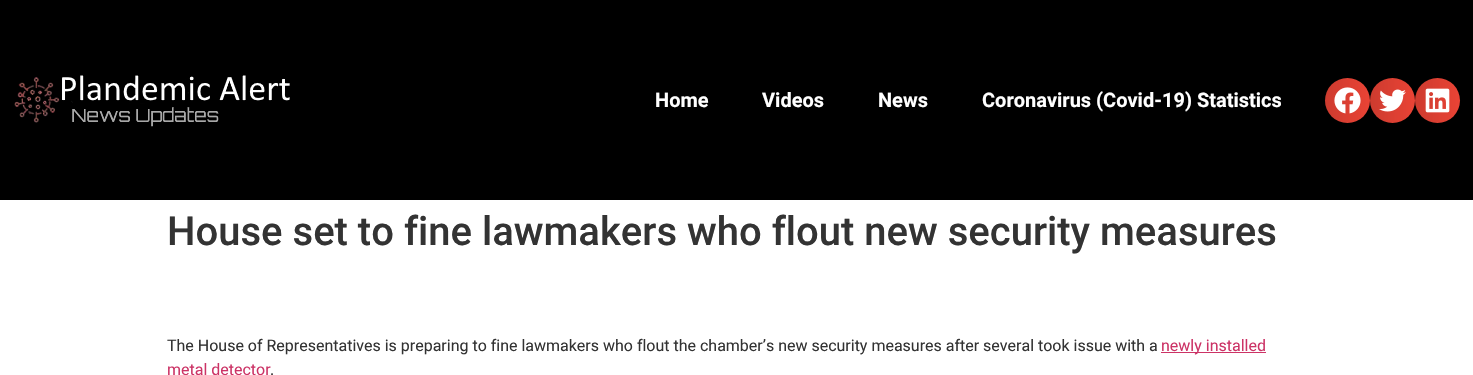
void draw(SkCanvas* c) {
SkPaint p;
p.setAntiAlias(true);
auto F=[&](const char* family, int weight, float size, bool italic = false){SkFontStyle style(weight, SkFontStyle::kNormal_Width,italic ? SkFontStyle::kItalic_Slant : SkFontStyle::kUpright_Slant);SkFont result(fontMgr->matchFamilyStyle(family, style), size);result.setSubpixel(true);return result;};
auto T=[&](const char* s, float x, float y, const SkFont& font){c->drawString(s, x, y, font, p);};
auto R=[&](float x, float y, float w, float h){c->drawRect(SkRect::MakeXYWH(x, y, w, h), p);};
auto I=[&](const char* path, float x, float y, float w, float h){auto image = SkImages::DeferredFromEncodedData(SkData::MakeFromFileName(path));c->drawImageRect(image, SkRect::MakeXYWH(x, y, w, h), SkSamplingOptions());};
c->clear(0xffffffff);
p.setColor(0xff000000);
R(0,0,1473,200);
I("1.png",14,75,276,52);
auto f1 = F("Roboto",700,20);
p.setColor(0xffffffff);
T("Home",655,107,f1);
T("Videos",762,107,f1);
T("News",878,107,f1);
T("Coronavirus (Covid-19) Statistics",982,107,f1);
p.setColor(0xffea4335);
c->drawCircle(1347.5,100.5,22.5,p);
{
const SkColor colors[] = {0x1f000000,0x00000000};
const float stops[] = {0,1};
const SkPoint ends[] = {{1325,101}, {1370,101}};
p.setShader(SkGradientShader::MakeLinear(ends, colors, stops, 2, SkTileMode::kClamp));
p.setAlpha(255);
}
c->drawCircle(1347.5,100.5,22.5,p);
I("2.png",1334,87,27,27);
p.setShader(nullptr);
p.setColor(0xffea4335);
c->drawCircle(1392.5,100.5,22.5,p);
{
const SkColor colors[] = {0x1f000000,0x00000000};
const float stops[] = {0,1};
const SkPoint ends[] = {{1370,101}, {1415,101}};
p.setShader(SkGradientShader::MakeLinear(ends, colors, stops, 2, SkTileMode::kClamp));
p.setAlpha(255);
}
c->drawCircle(1392.5,100.5,22.5,p);
I("3.png",1379,89,27,23);
p.setShader(nullptr);
p.setColor(0xffea4335);
c->drawCircle(1437.5,100.5,22.5,p);
{
const SkColor colors[] = {0x1f000000,0x00000000};
const float stops[] = {0,1};
const SkPoint ends[] = {{1415,101}, {1460,101}};
p.setShader(SkGradientShader::MakeLinear(ends, colors, stops, 2, SkTileMode::kClamp));
p.setAlpha(255);
}
c->drawCircle(1437.5,100.5,22.5,p);
I("4.png",1425,88,25,25);
auto f2 = F("Roboto",500,40);
p.setShader(nullptr);
p.setColor(0xff333333);
T("House set to fine lawmakers who flout new security measures",167,245,f2);
auto f3 = F("Roboto",400,16);
T("The House of Representatives is preparing to fine lawmakers who flout the chamber’s new security measures after several took issue with a",167,351,f3);
p.setColor(0xffcc3366);
R(1161,352,105,1);
T("newly installed",1161,351,f3);
T("metal detector",167,375,f3);
p.setColor(0xff333333);
T(".",270,375,f3);
}
